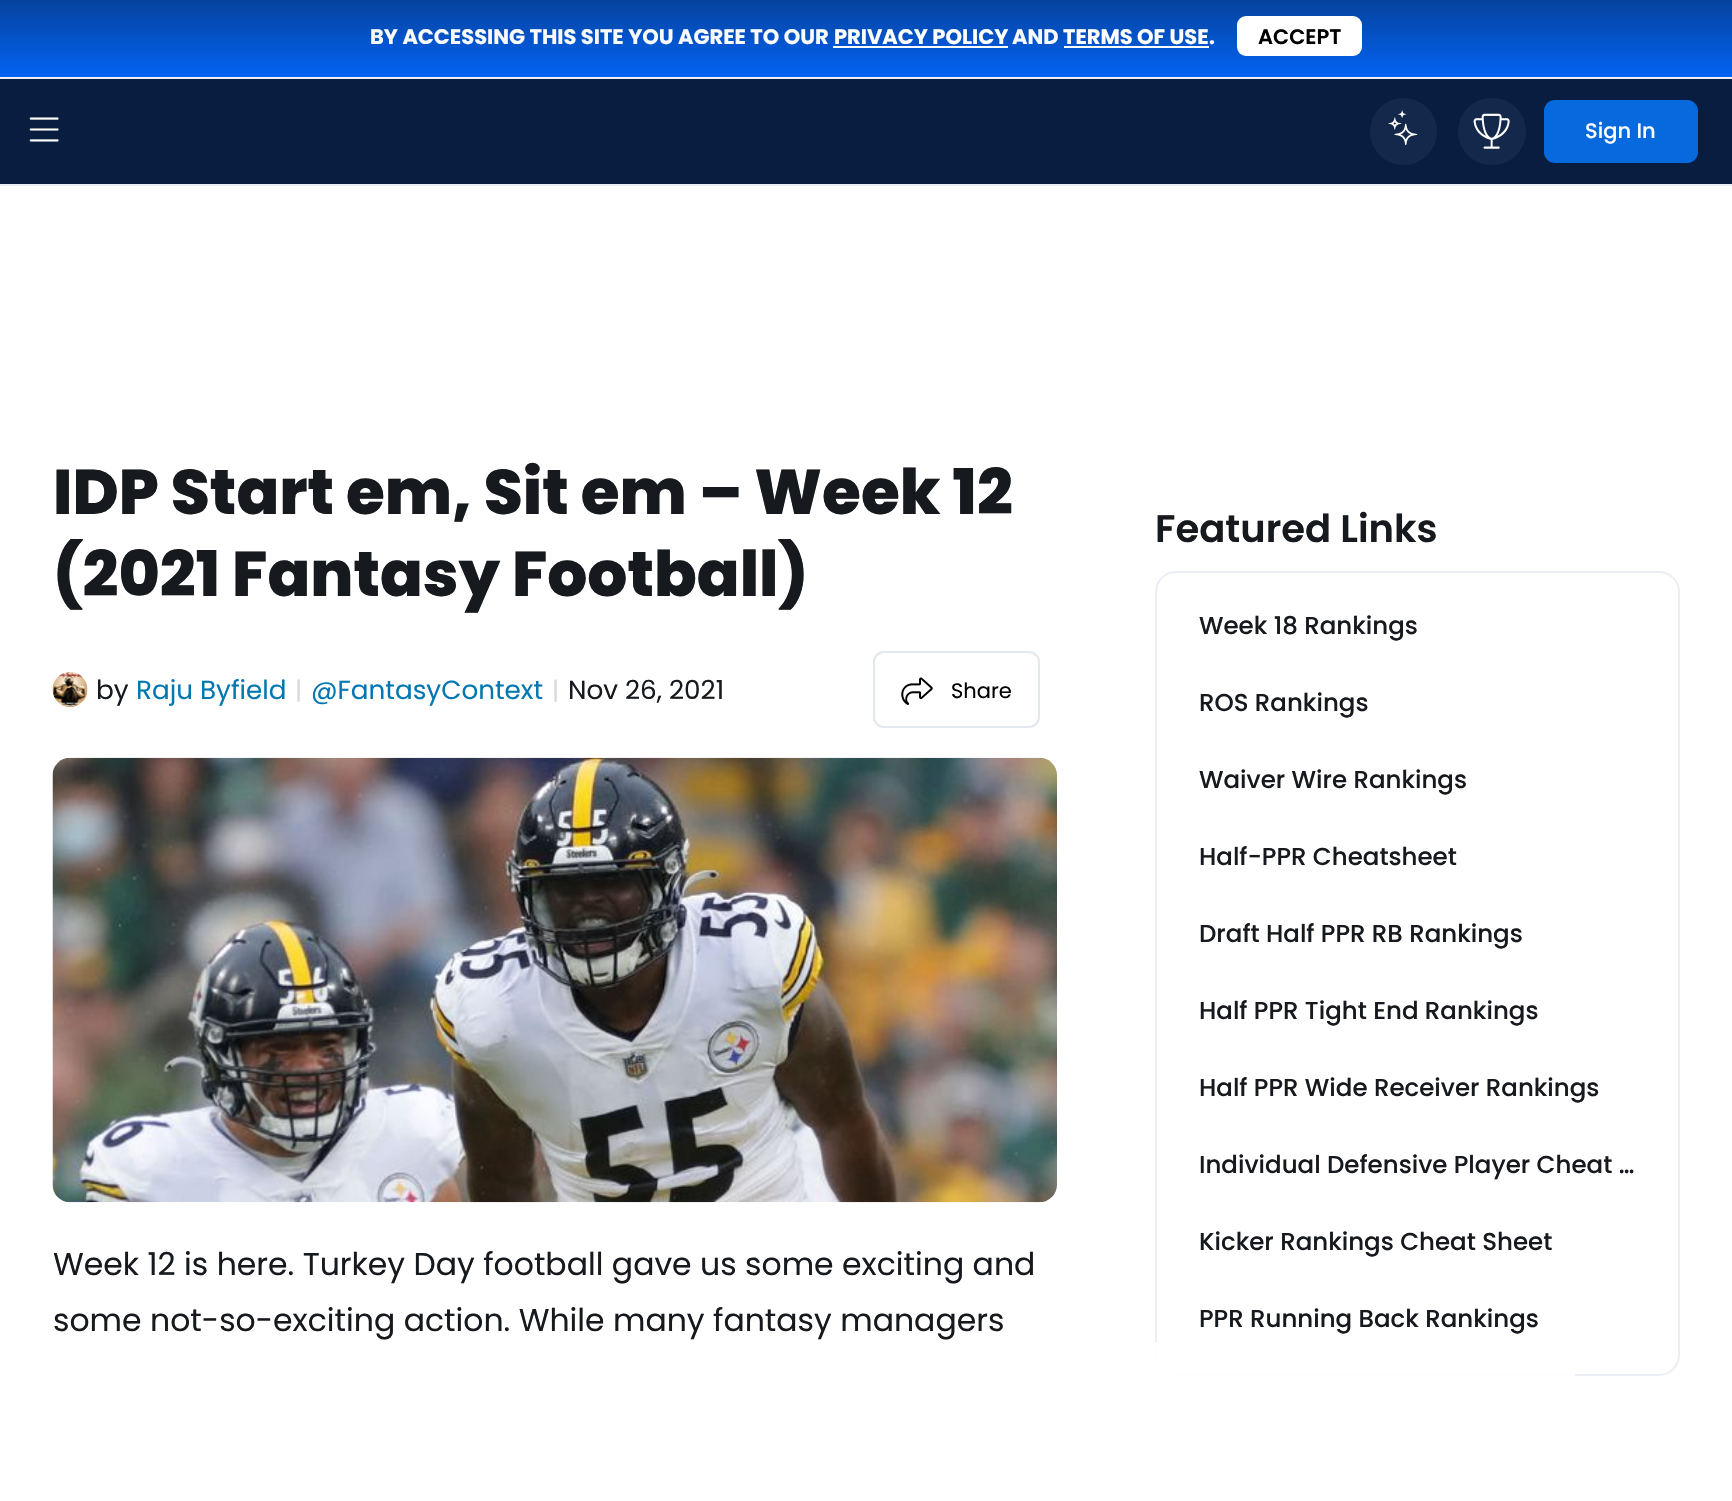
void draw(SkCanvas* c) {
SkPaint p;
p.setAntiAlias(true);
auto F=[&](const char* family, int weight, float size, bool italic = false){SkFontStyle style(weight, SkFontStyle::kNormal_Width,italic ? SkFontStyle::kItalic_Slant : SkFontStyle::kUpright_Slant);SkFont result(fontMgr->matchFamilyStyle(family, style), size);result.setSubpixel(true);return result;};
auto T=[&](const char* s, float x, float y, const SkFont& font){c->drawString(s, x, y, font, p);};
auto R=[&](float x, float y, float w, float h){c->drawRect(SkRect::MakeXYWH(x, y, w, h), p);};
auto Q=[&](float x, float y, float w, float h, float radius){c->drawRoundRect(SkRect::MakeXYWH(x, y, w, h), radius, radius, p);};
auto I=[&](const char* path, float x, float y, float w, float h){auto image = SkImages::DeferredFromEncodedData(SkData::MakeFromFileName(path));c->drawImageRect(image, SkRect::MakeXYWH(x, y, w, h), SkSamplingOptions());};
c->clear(0xffffffff);
{
const SkColor colors[] = {0xff081d3f,0xff0363f2};
const float stops[] = {0,1};
const SkPoint ends[] = {{866,-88}, {866,77}};
p.setShader(SkGradientShader::MakeLinear(ends, colors, stops, 2, SkTileMode::kClamp));
p.setAlpha(255);
}
R(0,0,1732,77);
auto f1 = F("Poppins",700,21);
p.setShader(nullptr);
p.setColor(0xfff8fafb);
T("BY ACCESSING THIS SITE YOU AGREE TO OUR",370,44,f1);
p.setColor(0xffffffff);
T("PRIVACY POLICY",834,44,f1);
R(833,46,175,2);
p.setColor(0xfff8fafb);
T("AND",1012,44,f1);
p.setColor(0xffffffff);
T("TERMS OF USE",1063,44,f1);
R(1064,46,145,2);
p.setColor(0xfff8fafb);
T(".",1209,44,f1);
p.setColor(0xffffffff);
Q(1237,16,125,40,9);
auto f2 = F("Poppins",600,21);
p.setColor(0xff000000);
T("ACCEPT",1258,44,f2);
p.setColor(0xff081d3f);
c->drawRect(SkRect::MakeXYWH(-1,78,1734,107),p);
p.setStroke(true);
p.setStrokeWidth(2);
p.setColor(0xffebeef4);
c->drawRect(SkRect::MakeXYWH(-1,78,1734,107),p);
I("1.png",29,117,30,25);
p.setStroke(false);
p.setColor(0xff13284a);
c->drawCircle(1403.5,131.5,33.5,p);
I("2.png",1388,110,30,36);
Q(1458,98,68,67,33.5);
I("3.png",1473,113,37,36);
p.setColor(0xff0769de);
Q(1544,100,154,63,11);
auto f3 = F("Poppins",500,21);
p.setColor(0xffffffff);
T("Sign In",1585,138,f3);
auto f4 = F("Poppins",800,63);
p.setColor(0xff16191d);
T("IDP Start em, Sit em – Week 12",53,514,f4);
T("(2021 Fantasy Football)",53,596,f4);
I("4.png",52,672,36,35);
auto f5 = F("Poppins",400,26.25);
T("by",96,699,f5);
p.setColor(0xff0377b1);
T("Raju Byfield",136,699,f5);
auto f6 = F("Poppins",400,24.5);
p.setColor(0xffdadada);
T("|",295,699,f6);
p.setColor(0xff0377b1);
T("@FantasyContext",311,699,f5);
p.setColor(0xffdadada);
T("|",552,699,f6);
p.setColor(0xff16191d);
T("Nov 26, 2021",568,699,f5);
p.setStroke(true);
p.setColor(0xffe3e7ee);
c->drawRoundRect(SkRect::MakeXYWH(874,652,165,75),10,10,p);
I("5.png",901,677,32,28);
auto f7 = F("Poppins",400,21);
p.setStroke(false);
p.setColor(0xff000000);
T("Share",951,698,f7);
I("6.png",52,757,1005,446);
auto f8 = F("Poppins",400,31.5);
p.setColor(0xff16191d);
T("Week 12 is here. Turkey Day football gave us some exciting and",53,1275,f8);
T("some not-so-exciting action. While many fantasy managers",53,1331,f8);
auto f9 = F("Poppins",600,38.5);
T("Featured Links",1155,542,f9);
p.setStroke(true);
p.setColor(0xffebeef4);
c->drawRoundRect(SkRect::MakeXYWH(1156,572,523,803),20,20,p);
auto f10 = F("Poppins",500,24.5);
p.setStroke(false);
p.setColor(0xff16191d);
T("Week 18 Rankings",1199,634,f10);
T("ROS Rankings",1199,711,f10);
T("Waiver Wire Rankings",1199,788,f10);
T("Half-PPR Cheatsheet",1199,865,f10);
T("Draft Half PPR RB Rankings",1199,942,f10);
T("Half PPR Tight End Rankings",1199,1019,f10);
T("Half PPR Wide Receiver Rankings",1199,1096,f10);
T("Individual Defensive Player Cheat …",1199,1173,f10);
T("Kicker Rankings Cheat Sheet",1199,1250,f10);
T("PPR Running Back Rankings",1199,1327,f10);
p.setColor(0xe6ffffff);
R(1155,1344,420,32);
p.setColor(0xffffffff);
R(1155,1342,2,2);
}
